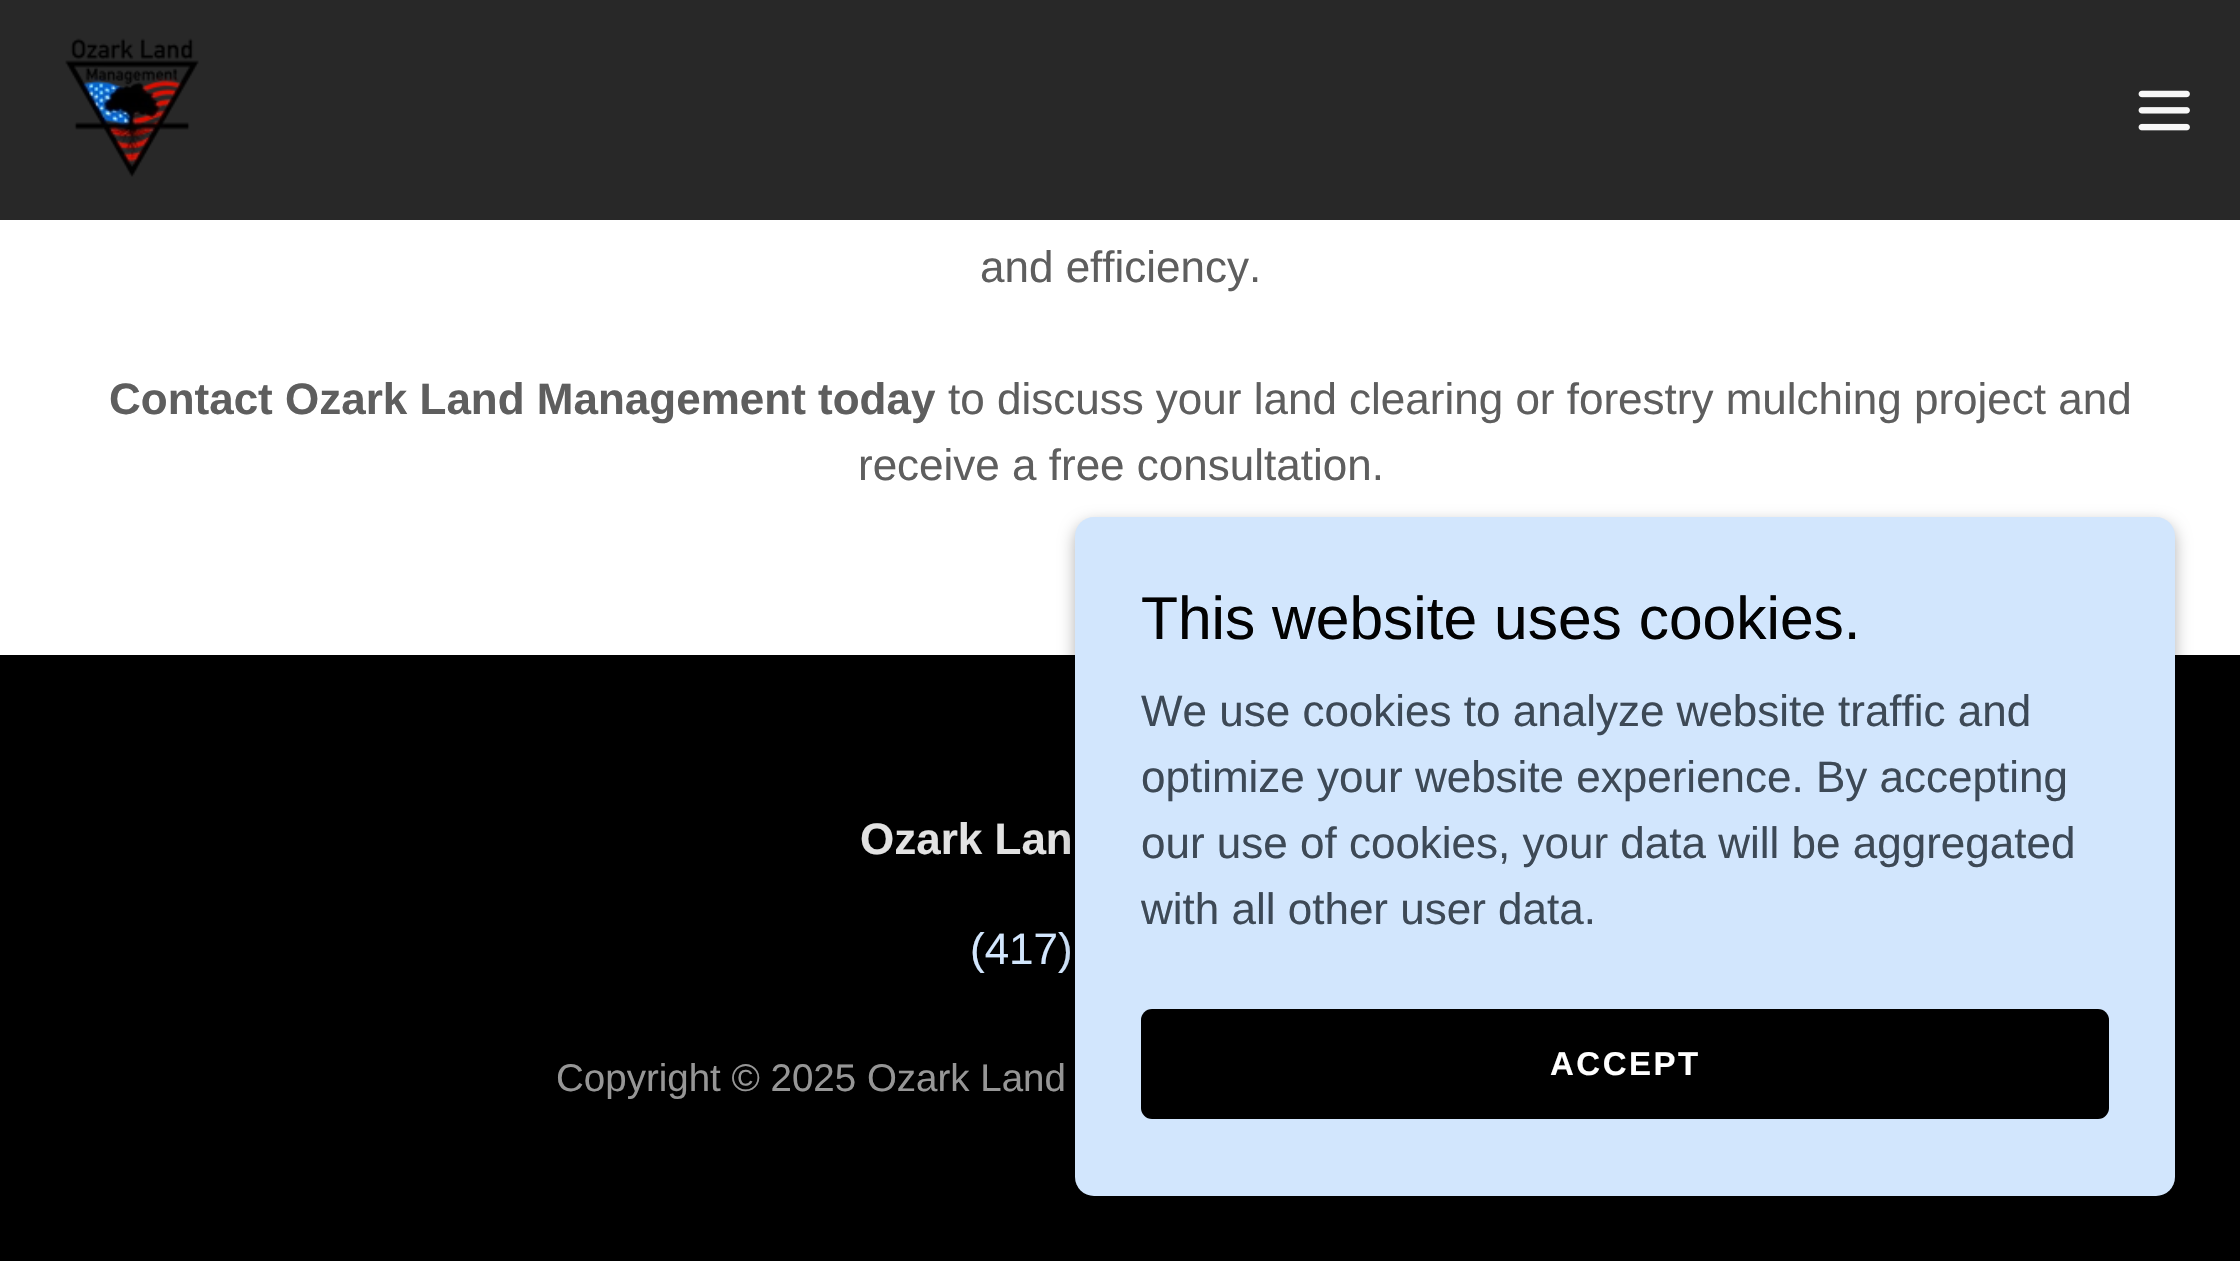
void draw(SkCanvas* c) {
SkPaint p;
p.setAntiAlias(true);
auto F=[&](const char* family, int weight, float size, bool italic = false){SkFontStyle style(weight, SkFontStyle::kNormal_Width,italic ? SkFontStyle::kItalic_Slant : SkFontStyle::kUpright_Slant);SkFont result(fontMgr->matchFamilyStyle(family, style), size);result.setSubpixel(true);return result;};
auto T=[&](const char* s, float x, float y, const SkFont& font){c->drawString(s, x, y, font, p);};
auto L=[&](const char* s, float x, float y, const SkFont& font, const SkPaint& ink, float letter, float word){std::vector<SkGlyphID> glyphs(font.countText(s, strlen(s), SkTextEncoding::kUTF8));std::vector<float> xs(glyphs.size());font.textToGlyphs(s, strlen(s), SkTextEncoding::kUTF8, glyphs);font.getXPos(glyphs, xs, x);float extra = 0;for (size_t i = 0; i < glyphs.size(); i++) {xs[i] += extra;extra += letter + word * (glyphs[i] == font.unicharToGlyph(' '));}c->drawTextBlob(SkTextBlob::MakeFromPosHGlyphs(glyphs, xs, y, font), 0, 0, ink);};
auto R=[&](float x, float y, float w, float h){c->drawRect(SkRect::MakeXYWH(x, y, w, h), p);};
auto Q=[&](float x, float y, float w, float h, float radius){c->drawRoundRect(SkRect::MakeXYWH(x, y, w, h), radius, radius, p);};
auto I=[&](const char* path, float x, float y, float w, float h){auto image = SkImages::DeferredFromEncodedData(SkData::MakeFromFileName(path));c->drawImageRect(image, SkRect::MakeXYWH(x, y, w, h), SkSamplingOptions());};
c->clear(0xff000000);
p.setColor(0xffffffff);
R(0,0,2240,655);
p.setColor(0xe6161616);
R(0,0,2240,220);
p.setColor(0x40161616);
R(0,0,2240,220);
I("1.png",65,38,134,139);
I("2.png",2138,90,52,41);
auto f1 = F("Liberation Sans",400,44);
p.setColor(0xff5e5e5e);
T("and efficiency.",980,282,f1);
auto f2 = F("Liberation Sans",700,44);
T("Contact Ozark Land Management today",109,414,f2);
T("to discuss your land clearing or forestry mulching project and",948,414,f1);
T("receive a free consultation.",858,480,f1);
p.setColor(0xffe2e2e2);
T("Ozark Lan",860,854,f2);
p.setColor(0xffd2e6fd);
T("(417)",970,964,f1);
auto f3 = F("Liberation Sans",400,38.5);
p.setColor(0xff969696);
T("Copyright © 2025 Ozark Land",556,1091,f3);
p.setColor(0x4d000000);
p.setMaskFilter(SkMaskFilter::MakeBlur(kNormal_SkBlurStyle, 8));
c->drawRoundRect(SkRect::MakeXYWH(1075,523,1100,679),19,19,p);
p.setMaskFilter(nullptr);
p.setColor(0xffd2e6fd);
Q(1075,517,1100,679,19);
auto f4 = F("Liberation Sans",400,60.5);
p.setColor(0xff020202);
T("This website uses cookies.",1141,639,f4);
p.setColor(0xff3d4956);
T("We use cookies to analyze website traffic and",1141,726,f1);
T("optimize your website experience. By accepting",1141,792,f1);
T("our use of cookies, your data will be aggregated",1141,858,f1);
T("with all other user data.",1141,924,f1);
p.setColor(0xff000000);
Q(1141,1009,968,110,11);
auto f5 = F("Liberation Sans",700,33);
p.setColor(0xffffffff);
L("ACCEPT",1550,1075,f5,p,2.5,0);
}
